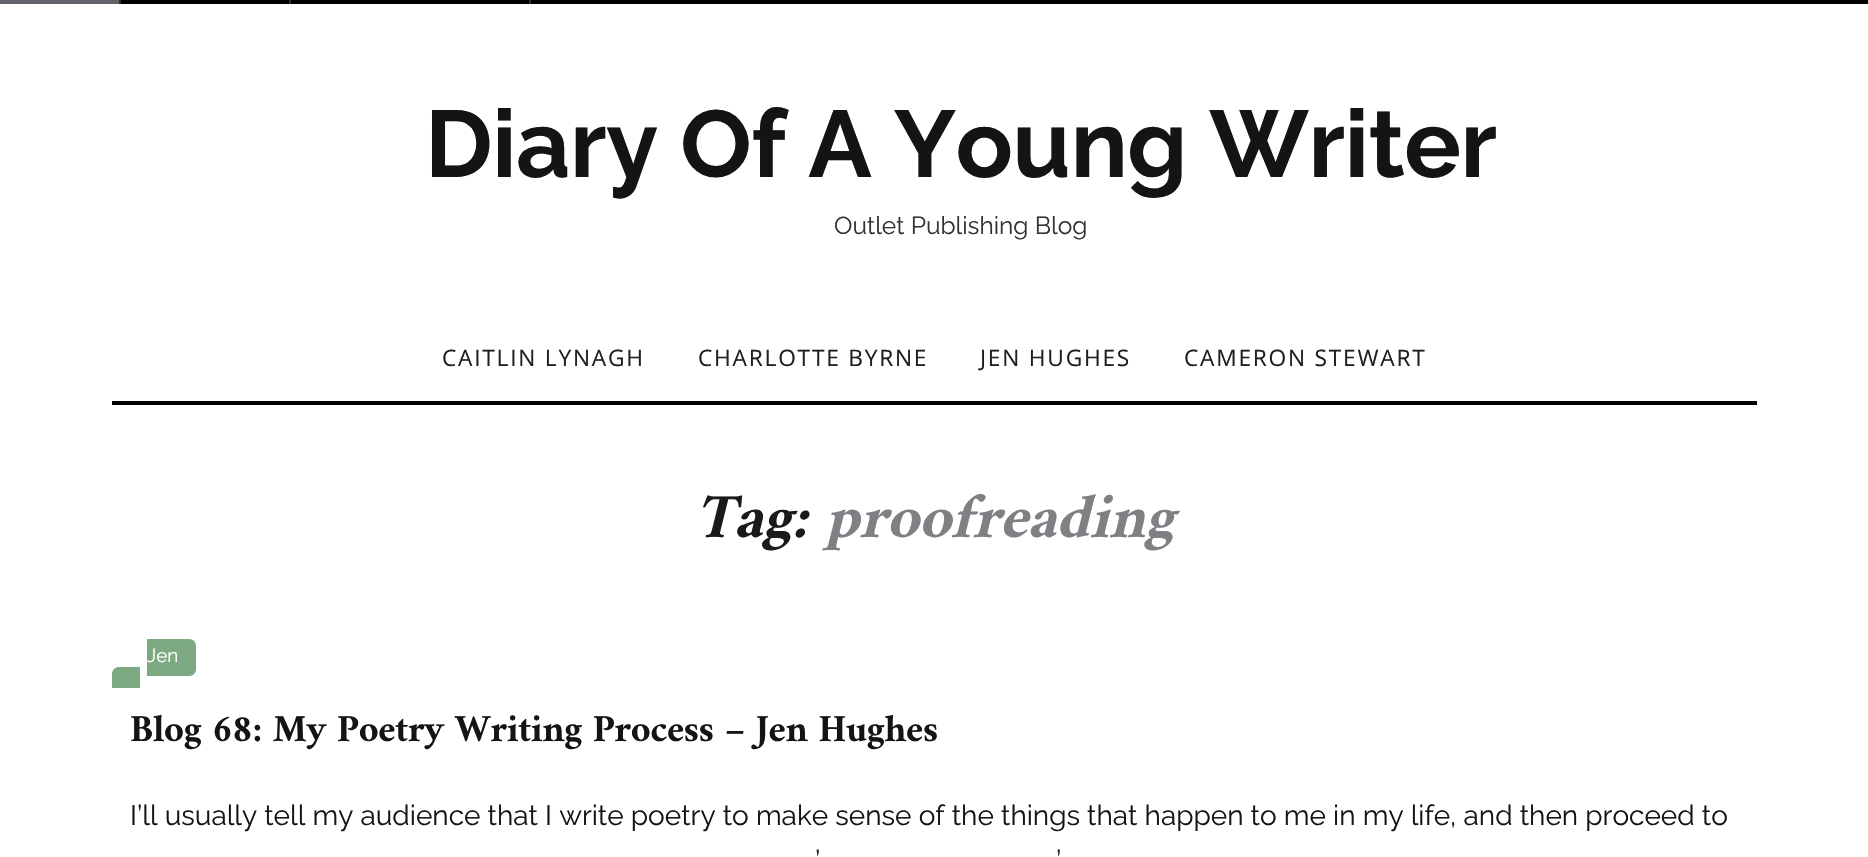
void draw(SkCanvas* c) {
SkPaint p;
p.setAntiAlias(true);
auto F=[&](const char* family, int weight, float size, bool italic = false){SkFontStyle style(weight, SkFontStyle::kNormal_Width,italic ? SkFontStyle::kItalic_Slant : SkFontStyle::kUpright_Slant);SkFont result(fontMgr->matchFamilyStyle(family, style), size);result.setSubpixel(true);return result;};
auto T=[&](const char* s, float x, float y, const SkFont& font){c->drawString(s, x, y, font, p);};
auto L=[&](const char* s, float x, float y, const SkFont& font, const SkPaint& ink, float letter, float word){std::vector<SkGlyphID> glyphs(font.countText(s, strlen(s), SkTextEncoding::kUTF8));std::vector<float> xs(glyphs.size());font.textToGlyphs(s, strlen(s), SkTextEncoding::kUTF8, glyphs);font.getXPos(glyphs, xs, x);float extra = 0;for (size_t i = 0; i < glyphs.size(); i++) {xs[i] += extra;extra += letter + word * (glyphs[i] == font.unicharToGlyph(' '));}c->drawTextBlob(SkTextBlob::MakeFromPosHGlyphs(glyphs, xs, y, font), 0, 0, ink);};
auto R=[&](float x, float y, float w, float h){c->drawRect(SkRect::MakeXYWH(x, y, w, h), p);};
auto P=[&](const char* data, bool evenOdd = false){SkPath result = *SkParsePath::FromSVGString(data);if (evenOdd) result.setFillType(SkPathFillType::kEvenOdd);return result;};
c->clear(0xffffffff);
p.setColor(0xff000000);
R(121,0,1747,4);
p.setColor(0xff61646b);
R(0,0,121,4);
p.setColor(0xff2f2e2e);
R(119,0,2,4);
R(289,0,2,4);
R(529,0,2,4);
auto f1 = F("Raleway",700,94.5);
p.setColor(0xff141415);
L("Diary Of A Young Writer",425,177,f1,p,-.35,0);
auto f2 = F("Raleway",400,24.5);
p.setColor(0xff333333);
T("Outlet Publishing Blog",834,234,f2);
p.setColor(0xff020202);
R(112,401,1645,4);
auto f3 = F("Open Sans",400,22.75);
p.setColor(0xff212020);
L("CAITLIN LYNAGH",442,366,f3,p,1.75,0);
L("CHARLOTTE BYRNE",698,366,f3,p,1.75,0);
L("JEN HUGHES",980,366,f3,p,1.75,0);
L("CAMERON STEWART",1184,366,f3,p,1.75,0);
auto f4 = F("Amiri",700,63,true);
p.setColor(0xff1a1a1a);
L("Tag:",695,537,f4,p,-.35,0);
p.setColor(0xff7f7f84);
L("proofreading",825,537,f4,p,-.35,0);
p.setColor(0xff7daa83);
c->drawPath(P("M147 639h42c4 0 7 3 7 7v23c0 4-3 7-7 7h-42z"),p);
auto f5 = F("Raleway",400,19);
p.setColor(0xffffffff);
T("Jen",147,662,f5);
p.setColor(0xff7daa83);
c->drawPath(P("M119 667h21v21h-28v-14c0-4 3-7 7-7z"),p);
auto f6 = F("Amiri",700,38.5);
p.setColor(0xff141415);
L("Blog 68: My Poetry Writing Process – Jen Hughes",130,741,f6,p,-.35,0);
auto f7 = F("Raleway",400,28);
T("I’ll usually tell my audience that I write poetry to make sense of the things that happen to me in my life, and then proceed to",130,825,f7);
T("’",815,870,f7);
T("’",1056,870,f7);
}
